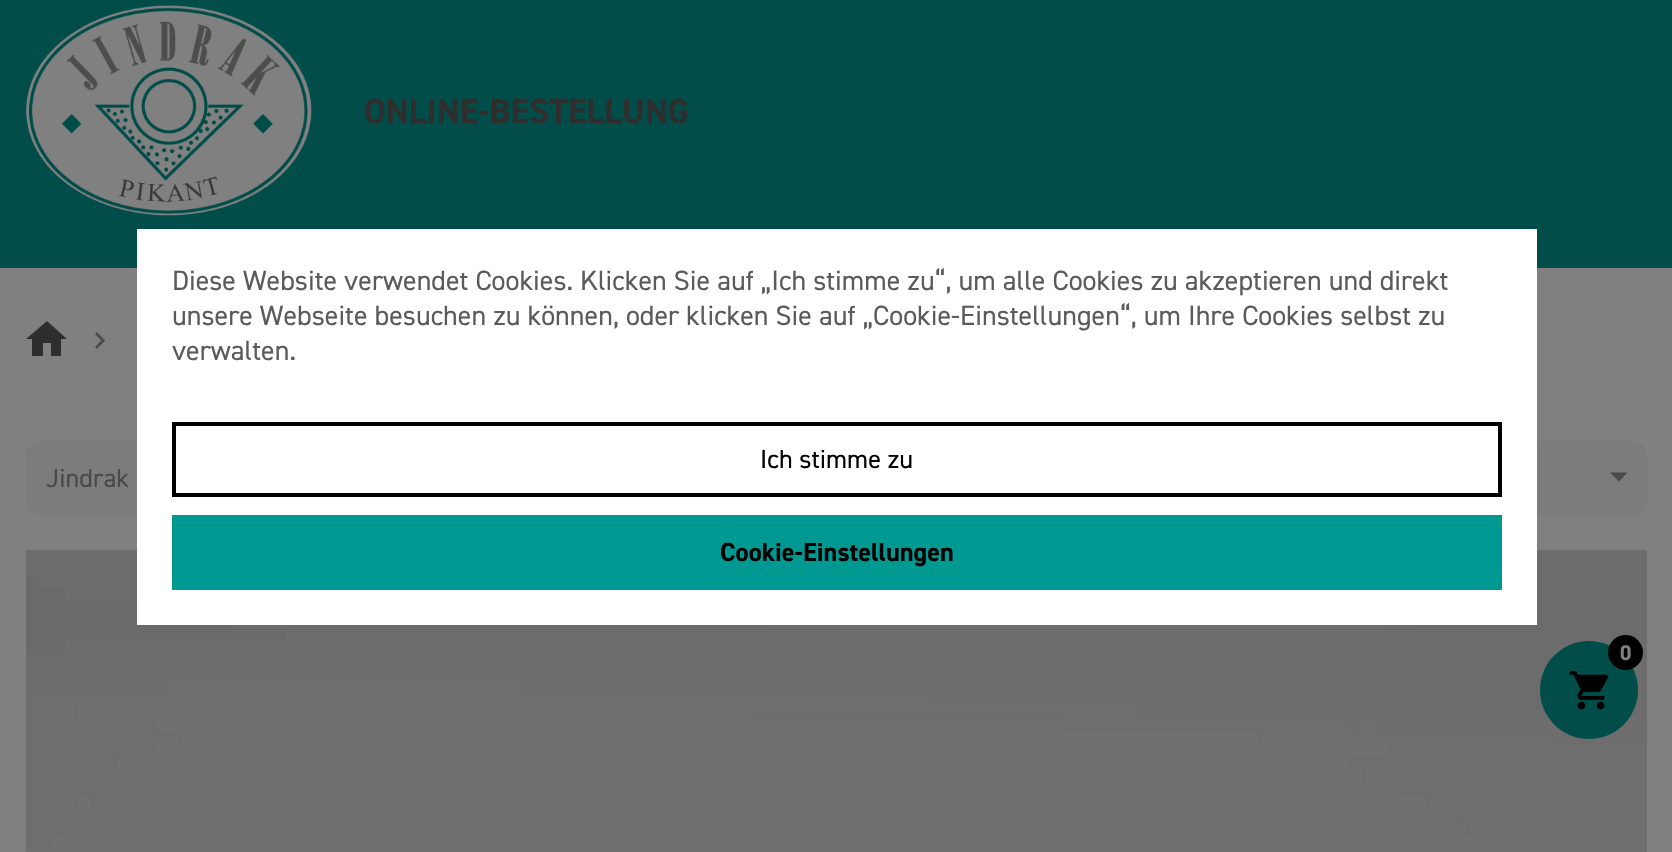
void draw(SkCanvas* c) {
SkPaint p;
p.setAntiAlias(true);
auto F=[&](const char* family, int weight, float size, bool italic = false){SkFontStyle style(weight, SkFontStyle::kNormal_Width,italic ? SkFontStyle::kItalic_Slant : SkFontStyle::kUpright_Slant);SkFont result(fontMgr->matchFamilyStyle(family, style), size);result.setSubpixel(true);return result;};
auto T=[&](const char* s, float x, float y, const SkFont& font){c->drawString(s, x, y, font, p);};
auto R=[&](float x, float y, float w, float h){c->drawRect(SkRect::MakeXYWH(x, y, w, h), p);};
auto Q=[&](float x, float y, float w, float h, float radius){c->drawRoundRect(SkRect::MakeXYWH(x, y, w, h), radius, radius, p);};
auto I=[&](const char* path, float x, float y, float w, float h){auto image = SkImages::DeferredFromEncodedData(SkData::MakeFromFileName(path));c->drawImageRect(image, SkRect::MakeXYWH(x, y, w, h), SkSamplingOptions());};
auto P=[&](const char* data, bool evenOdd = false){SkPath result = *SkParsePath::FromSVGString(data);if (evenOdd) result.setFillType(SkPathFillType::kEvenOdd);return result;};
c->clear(0xff808080);
p.setColor(0xff004d49);
R(0,0,1672,268);
I("1.png",26,5,286,211);
auto f1 = F("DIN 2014",700,35);
p.setColor(0xff2e2e2e);
T("ONLINE-BESTELLUNG",364,123,f1);
p.setColor(0xff7c7c7c);
Q(26,441,1621,74,14);
I("3.png",26,550,1621,302);
p.setColor(0xffffffff);
R(137,229,1400,396);
auto f2 = F("DIN 2014",400,28);
p.setColor(0xff5b5b5b);
T("Diese Website verwendet Cookies. Klicken Sie auf „Ich stimme zu“, um alle Cookies zu akzeptieren und direkt",172,290,f2);
T("unsere Webseite besuchen zu können, oder klicken Sie auf „Cookie-Einstellungen“, um Ihre Cookies selbst zu",172,325,f2);
T("verwalten.",172,360,f2);
p.setStroke(true);
p.setStrokeWidth(4);
p.setColor(0xff000000);
c->drawRect(SkRect::MakeXYWH(174,424,1326,71),p);
auto f3 = F("DIN 2014",400,26.25);
p.setStroke(false);
T("Ich stimme zu",760,468,f3);
p.setColor(0xff009992);
R(172,515,1330,75);
auto f4 = F("DIN 2014",700,26.25);
p.setColor(0xff000000);
T("Cookie-Einstellungen",720,561,f4);
p.setColor(0xff2e2e2e);
c->drawPath(P("M43 356v-13h8v13h10v-17h6l-20-18l-21 18h6v17z"),p);
I("2.png",95,332,11,17);
p.setColor(0xff4a4a4a);
T("Jindrak",46,487,f3);
c->drawPath(P("M1610 472.5l9 9l8.5-9z"),p);
p.setColor(0xff004d49);
c->drawCircle(1589,690,49,p);
p.setColor(0xff000000);
c->drawCircle(1625.5,652.5,17.5,p);
auto f5 = F("DIN 2014",700,21);
p.setColor(0xff808080);
T("0",1620,660,f5);
I("4.png",1569,670,40,40);
}
